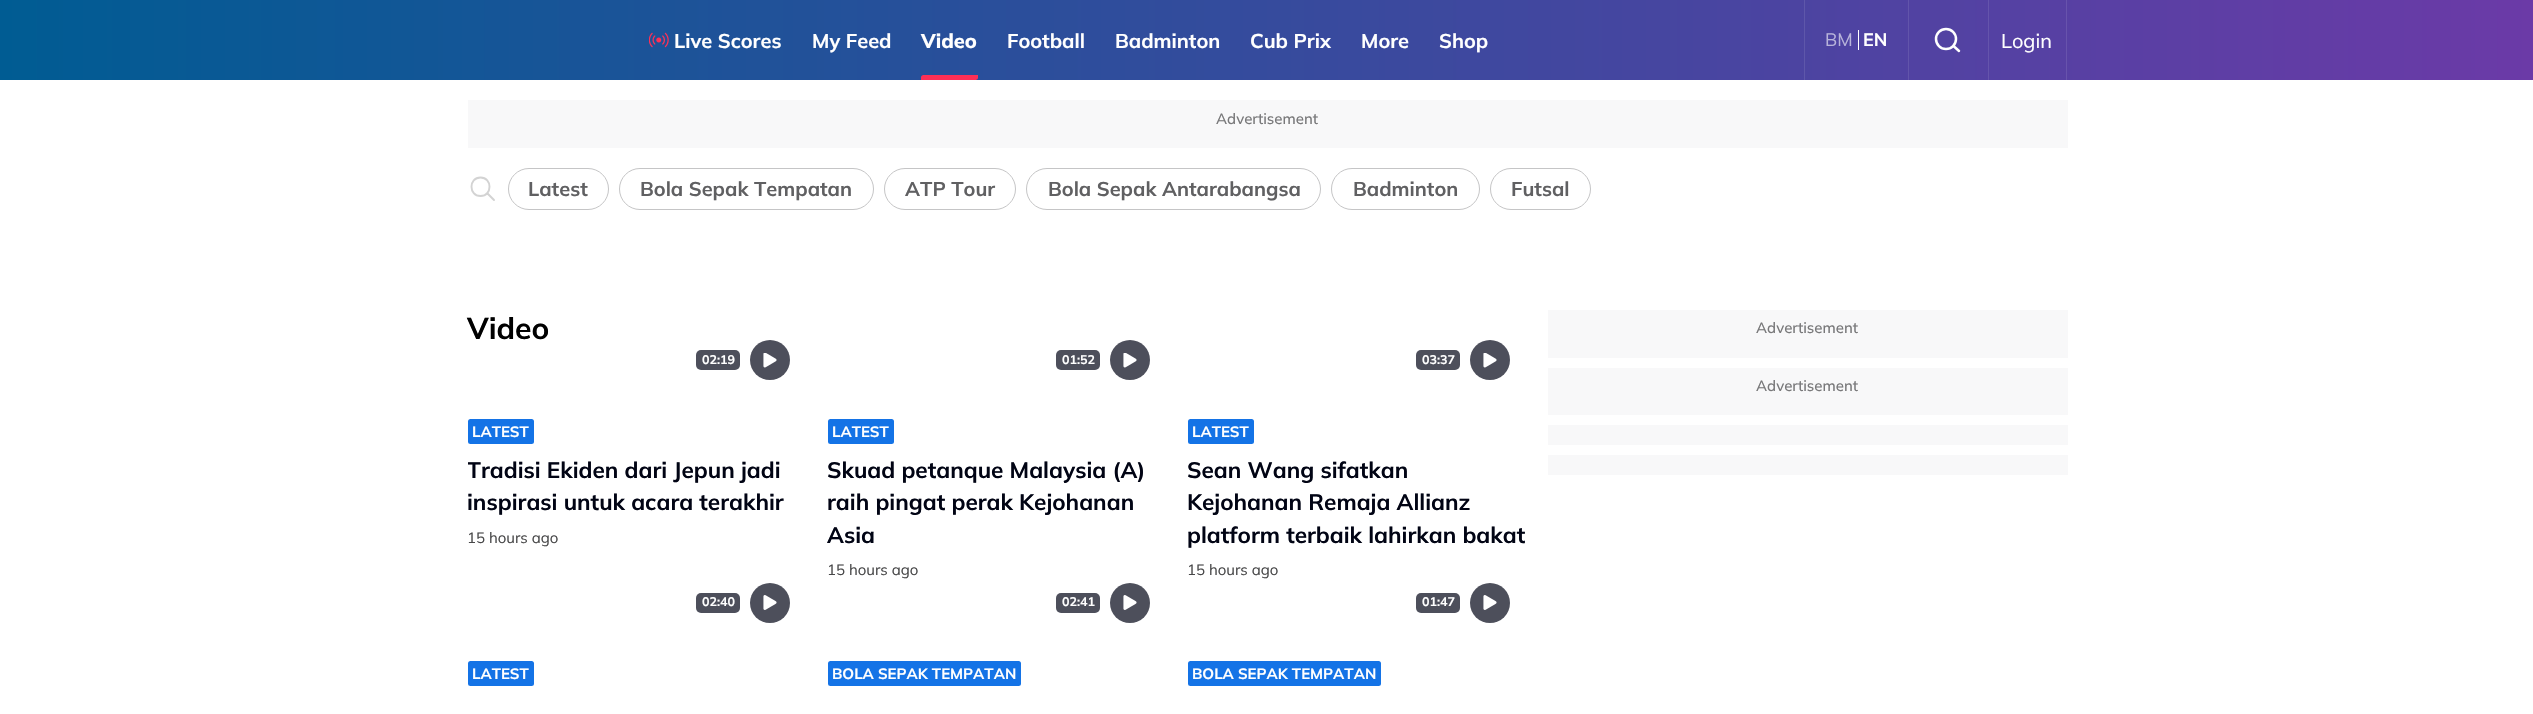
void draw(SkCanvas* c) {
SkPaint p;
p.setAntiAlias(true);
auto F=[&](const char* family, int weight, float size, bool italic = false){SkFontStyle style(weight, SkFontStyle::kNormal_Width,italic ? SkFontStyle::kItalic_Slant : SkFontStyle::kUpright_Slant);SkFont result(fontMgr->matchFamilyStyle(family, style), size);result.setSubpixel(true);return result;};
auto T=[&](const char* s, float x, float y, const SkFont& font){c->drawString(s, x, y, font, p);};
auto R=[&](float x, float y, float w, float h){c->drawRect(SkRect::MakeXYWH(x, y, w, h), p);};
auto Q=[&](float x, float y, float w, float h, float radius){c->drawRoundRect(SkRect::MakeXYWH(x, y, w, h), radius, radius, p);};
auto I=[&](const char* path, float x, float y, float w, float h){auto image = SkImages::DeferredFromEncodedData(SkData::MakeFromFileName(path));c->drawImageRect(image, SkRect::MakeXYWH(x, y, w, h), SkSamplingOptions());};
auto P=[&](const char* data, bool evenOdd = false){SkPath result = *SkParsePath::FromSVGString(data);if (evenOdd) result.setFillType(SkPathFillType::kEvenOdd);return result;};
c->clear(0xffffffff);
{
const SkColor colors[] = {0xff005c93,0xff6b3aa7};
const float stops[] = {0,1};
const SkPoint ends[] = {{0,40}, {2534,40}};
p.setShader(SkGradientShader::MakeLinear(ends, colors, stops, 2, SkTileMode::kClamp));
p.setAlpha(255);
}
R(0,0,2533,80);
I("1.png",649,32,20,16);
auto f1 = F("Mulish",700,20);
p.setShader(nullptr);
p.setColor(0xffffffff);
T("Live Scores",674,48,f1);
T("My Feed",812,48,f1);
auto f2 = F("Mulish",800,20);
T("Video",921,48,f2);
p.setColor(0xfffe2f56);
c->drawPath(P("M923.5 75h54.5v2.5c0 1.5-1 2.5-2.5 2.5h-54.5v-2.5c0-1.5 1-2.5 2.5-2.5z"),p);
p.setColor(0xffffffff);
T("Football",1007,48,f1);
T("Badminton",1115,48,f1);
T("Cub Prix",1250,48,f1);
T("More",1361,48,f1);
T("Shop",1439,48,f1);
p.setColor(0xff5e57aa);
R(1804,0,1,80);
auto f3 = F("Mulish",400,18);
p.setColor(0xffb8b4da);
T("BM",1825,46,f3);
p.setColor(0xffffffff);
R(1858,30,1,20);
auto f4 = F("Mulish",700,18);
T("EN",1863,46,f4);
p.setColor(0xff6255ab);
R(1908,0,1,80);
p.setStroke(true);
p.setStrokeWidth(2.5);
p.setColor(0xffffffff);
c->drawCircle(1946,39,10,p);
p.setStrokeCap(SkPaint::kRound_Cap);
p.setStrokeJoin(SkPaint::kRound_Join);
c->drawPath(P("M1959 51l-5.5-5"),p);
p.setStroke(false);
p.setColor(0xff6853ac);
R(2066,0,1,80);
p.setColor(0xff6554ac);
R(1988,0,1,80);
auto f5 = F("Mulish",400,20);
p.setColor(0xffffffff);
T("Login",2001,48,f5);
p.setColor(0xfff8f8f9);
R(468,100,1600,48);
auto f6 = F("Mulish",500,15);
p.setColor(0xff78787a);
T("Advertisement",1216,124,f6);
p.setStroke(true);
p.setStrokeWidth(1.9);
p.setStrokeCap(SkPaint::kButt_Cap);
p.setStrokeJoin(SkPaint::kMiter_Join);
p.setColor(0xffd3d3d3);
c->drawPath(P("M480.5 177.5c-12 0-12 18.5 0 18.5c12 0 12-18.5 0-18.5z"),p);
p.setStrokeCap(SkPaint::kRound_Cap);
c->drawPath(P("M487.5 193.5l6.5 6.5"),p);
p.setStrokeWidth(1);
p.setStrokeCap(SkPaint::kButt_Cap);
p.setColor(0xffc5c5c6);
c->drawRoundRect(SkRect::MakeXYWH(508.5,168.5,100,41),20.5,20.5,p);
p.setStroke(false);
p.setColor(0xff606062);
T("Latest",528,196,f1);
p.setStroke(true);
p.setColor(0xffc5c5c6);
c->drawRoundRect(SkRect::MakeXYWH(619.5,168.5,254,41),20.5,20.5,p);
p.setStroke(false);
p.setColor(0xff606062);
T("Bola Sepak Tempatan",640,196,f1);
p.setStroke(true);
p.setColor(0xffc5c5c6);
c->drawRoundRect(SkRect::MakeXYWH(884.5,168.5,131,41),20.5,20.5,p);
p.setStroke(false);
p.setColor(0xff606062);
T("ATP Tour",905,196,f1);
p.setStroke(true);
p.setColor(0xffc5c5c6);
c->drawRoundRect(SkRect::MakeXYWH(1026.5,168.5,294,41),20.5,20.5,p);
p.setStroke(false);
p.setColor(0xff606062);
T("Bola Sepak Antarabangsa",1048,196,f1);
p.setStroke(true);
p.setColor(0xffc5c5c6);
c->drawRoundRect(SkRect::MakeXYWH(1331.5,168.5,148,41),20.5,20.5,p);
p.setStroke(false);
p.setColor(0xff606062);
T("Badminton",1353,196,f1);
p.setStroke(true);
p.setColor(0xffc5c5c6);
c->drawRoundRect(SkRect::MakeXYWH(1490.5,168.5,100,41),20.5,20.5,p);
p.setStroke(false);
p.setColor(0xff606062);
T("Futsal",1511,196,f1);
auto f7 = F("Mulish",700,30);
p.setColor(0xff000000);
T("Video",467,339,f7);
p.setColor(0xff4d4f5b);
Q(696,350,44,20,5);
auto f8 = F("Mulish",700,12.5);
p.setColor(0xffffffff);
T("02:19",702,364,f8);
p.setColor(0xff4d4f5b);
c->drawCircle(770,360,20,p);
I("2.png",763,353,14,15);
p.setColor(0xff1473e6);
Q(468,419,66,25,2.5);
auto f9 = F("Mulish",700,15);
p.setColor(0xffffffff);
T("LATEST",472,437,f9);
c->save();
c->clipRect(SkRect::MakeXYWH(468,454,340,65));
auto f10 = F("Mulish",700,22.5);
p.setColor(0xff010414);
T("Tradisi Ekiden dari Jepun jadi",467,478,f10);
c->restore();
T("inspirasi untuk acara terakhir",467,510,f10);
auto f11 = F("Mulish",400,15);
p.setColor(0xff484849);
T("15 hours ago",467,543,f11);
p.setColor(0xff4d4f5b);
Q(1056,350,44,20,5);
p.setColor(0xffffffff);
T("01:52",1062,364,f8);
p.setColor(0xff4d4f5b);
c->drawCircle(1130,360,20,p);
I("2.png",1123,353,14,15);
p.setColor(0xff1473e6);
Q(828,419,66,25,2.5);
p.setColor(0xffffffff);
T("LATEST",832,437,f9);
p.setColor(0xff010414);
T("Skuad petanque Malaysia (A)",827,478,f10);
T("raih pingat perak Kejohanan",827,510,f10);
T("Asia",827,543,f10);
p.setColor(0xff484849);
T("15 hours ago",827,575,f11);
p.setColor(0xff4d4f5b);
Q(1416,350,44,20,5);
p.setColor(0xffffffff);
T("03:37",1422,364,f8);
p.setColor(0xff4d4f5b);
c->drawCircle(1490,360,20,p);
I("2.png",1483,353,14,15);
p.setColor(0xff1473e6);
Q(1188,419,66,25,2.5);
p.setColor(0xffffffff);
T("LATEST",1192,437,f9);
p.setColor(0xff010414);
T("Sean Wang sifatkan",1187,478,f10);
T("Kejohanan Remaja Allianz",1187,510,f10);
T("platform terbaik lahirkan bakat",1187,543,f10);
p.setColor(0xff484849);
T("15 hours ago",1187,575,f11);
p.setColor(0xff4d4f5b);
Q(696,593,44,20,5);
p.setColor(0xffffffff);
T("02:40",702,606,f8);
p.setColor(0xff4d4f5b);
c->drawCircle(770,603,20,p);
I("3.png",763,595,14,15);
p.setColor(0xff1473e6);
Q(468,661,66,25,2.5);
p.setColor(0xffffffff);
T("LATEST",472,679,f9);
p.setColor(0xff4d4f5b);
Q(1056,593,44,20,5);
p.setColor(0xffffffff);
T("02:41",1062,606,f8);
p.setColor(0xff4d4f5b);
c->drawCircle(1130,603,20,p);
I("3.png",1123,595,14,15);
p.setColor(0xff1473e6);
Q(828,661,193,25,2.5);
p.setColor(0xffffffff);
T("BOLA SEPAK TEMPATAN",832,679,f9);
p.setColor(0xff4d4f5b);
Q(1416,593,44,20,5);
p.setColor(0xffffffff);
T("01:47",1422,606,f8);
p.setColor(0xff4d4f5b);
c->drawCircle(1490,603,20,p);
I("3.png",1483,595,14,15);
p.setColor(0xff1473e6);
Q(1188,661,193,25,2.5);
p.setColor(0xffffffff);
T("BOLA SEPAK TEMPATAN",1192,679,f9);
p.setColor(0xfff8f8f9);
R(1548,310,520,48);
p.setColor(0xff78787a);
T("Advertisement",1756,333,f6);
p.setColor(0xfff8f8f9);
R(1548,368,520,47);
p.setColor(0xff78787a);
T("Advertisement",1756,391,f6);
p.setColor(0xfff8f8f9);
R(1548,425,520,20);
R(1548,455,520,20);
}
